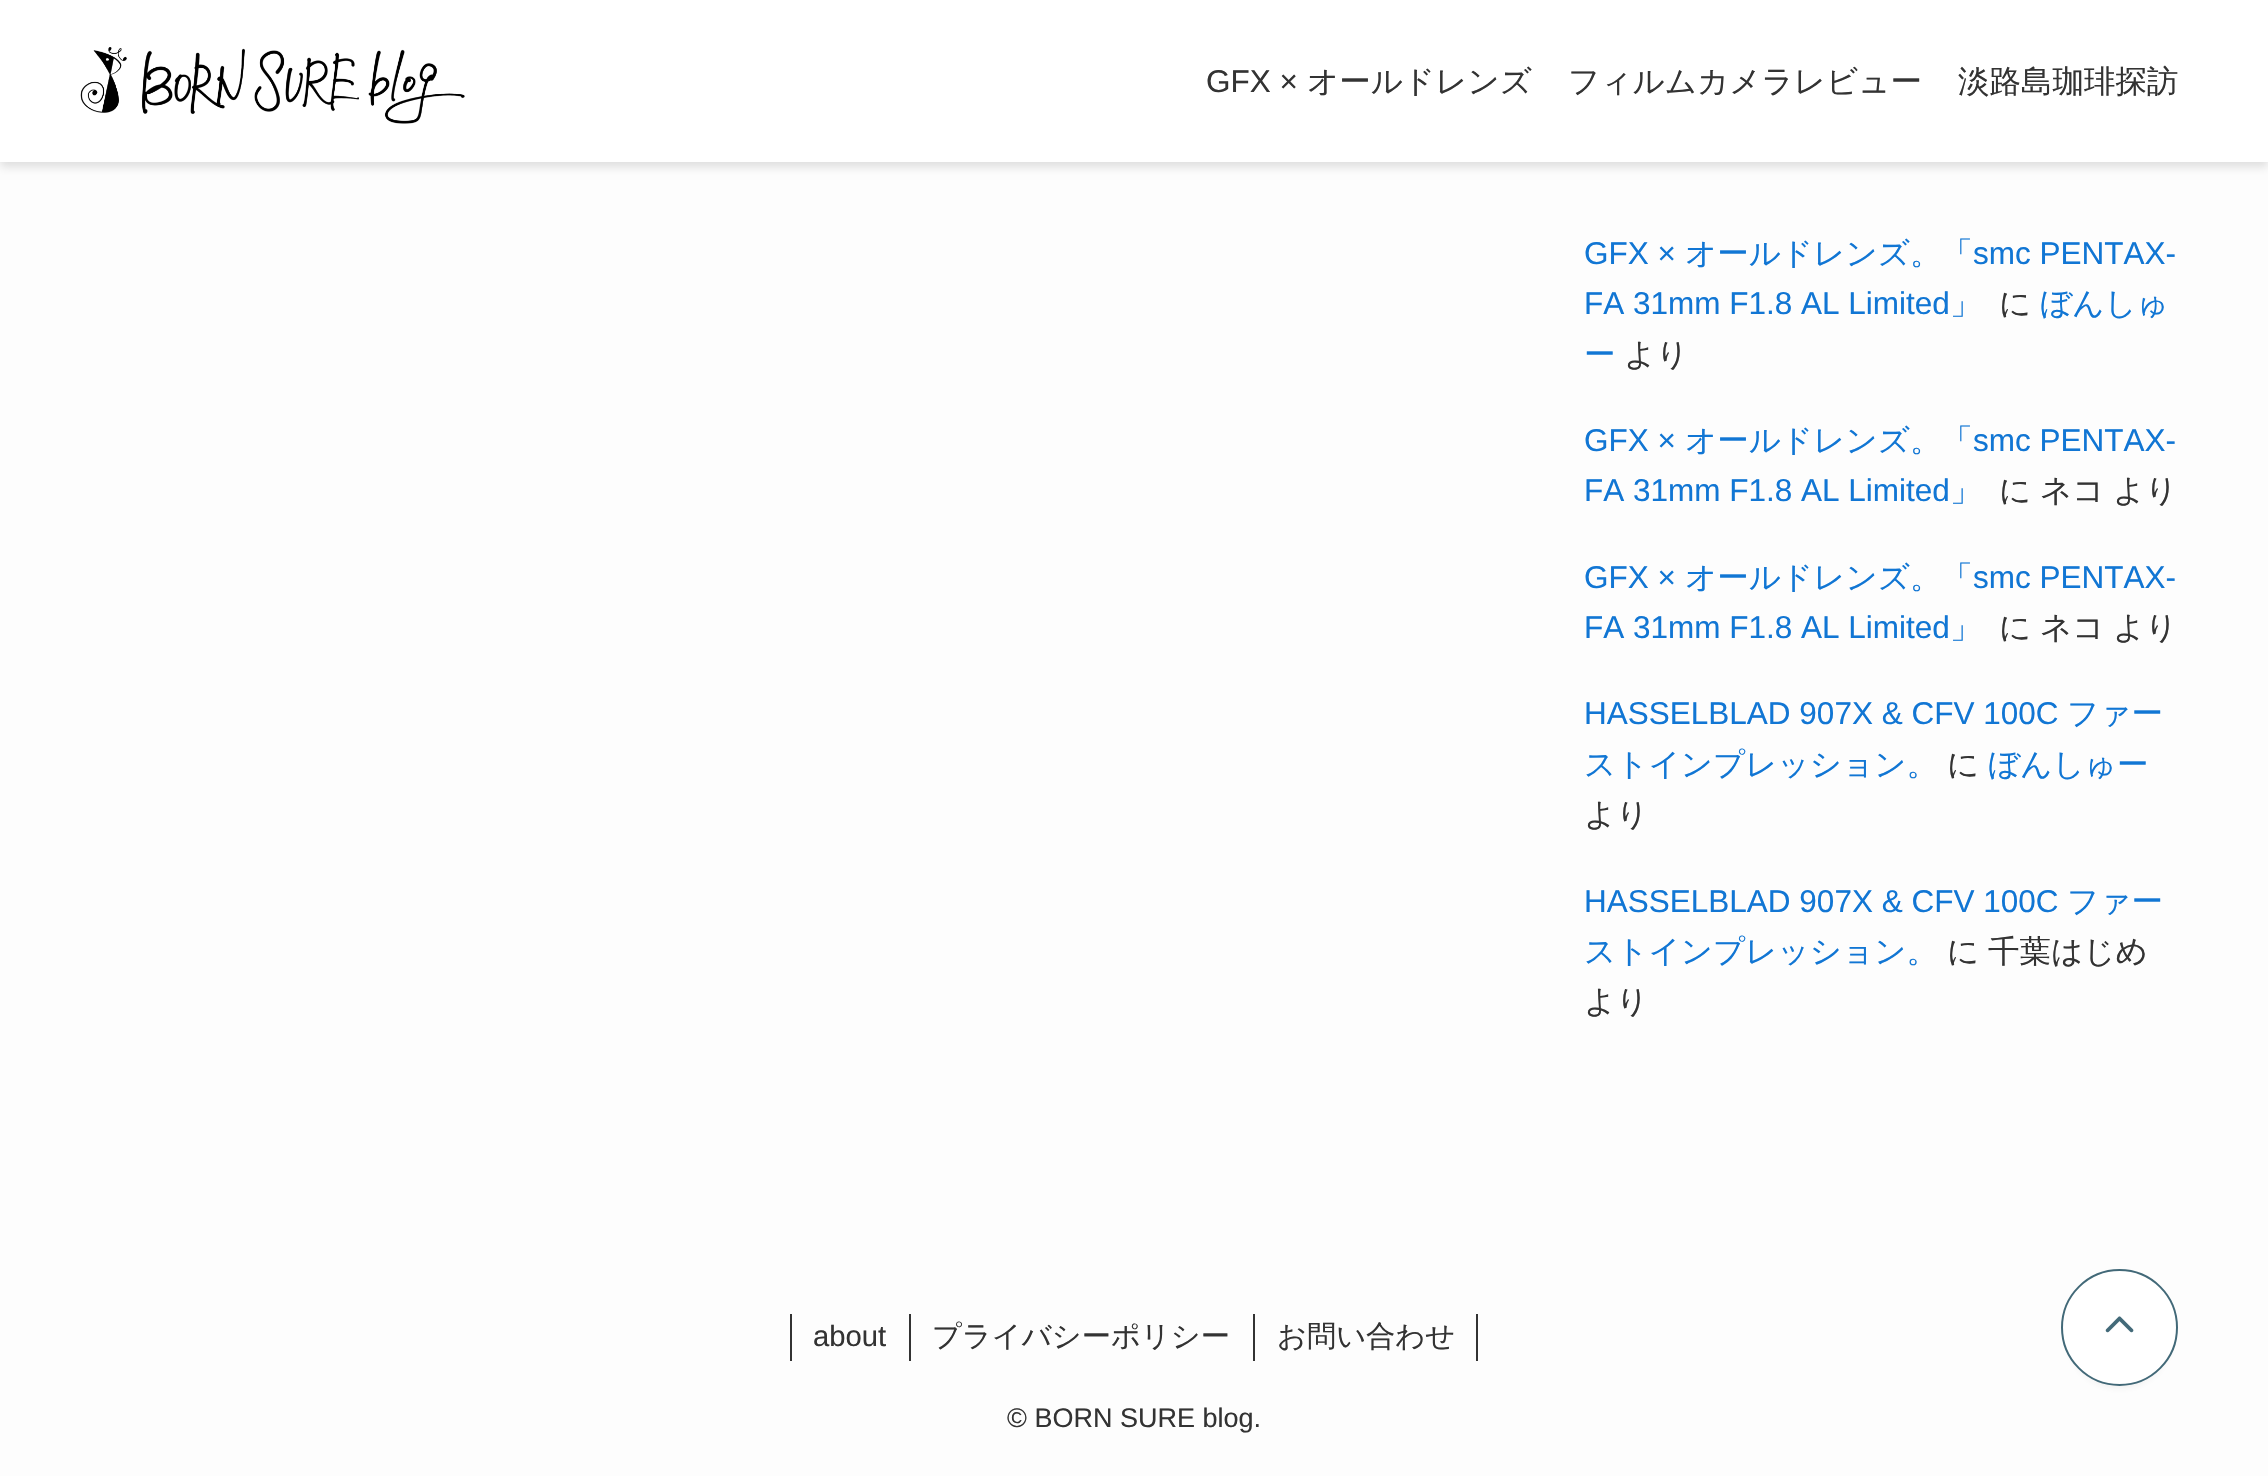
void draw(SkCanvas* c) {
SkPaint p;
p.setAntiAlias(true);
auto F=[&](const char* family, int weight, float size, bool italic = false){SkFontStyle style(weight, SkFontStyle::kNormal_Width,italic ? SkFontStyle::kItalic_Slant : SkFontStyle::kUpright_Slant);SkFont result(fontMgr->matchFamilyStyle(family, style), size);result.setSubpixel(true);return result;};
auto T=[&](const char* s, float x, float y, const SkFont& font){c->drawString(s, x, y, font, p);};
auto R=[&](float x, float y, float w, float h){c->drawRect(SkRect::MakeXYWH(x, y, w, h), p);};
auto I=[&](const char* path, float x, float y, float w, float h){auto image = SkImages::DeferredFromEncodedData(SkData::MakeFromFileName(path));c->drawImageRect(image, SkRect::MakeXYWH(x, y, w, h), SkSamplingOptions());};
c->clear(0xfffdfdfd);
p.setColor(0x1f000000);
p.setMaskFilter(SkMaskFilter::MakeBlur(kNormal_SkBlurStyle, 4.5));
c->drawRect(SkRect::MakeXYWH(0,5,2268,162),p);
p.setMaskFilter(nullptr);
p.setColor(0xffffffff);
R(0,0,2268,162);
I("1.png",80,47,385,77);
auto f1 = F("Liberation Sans",400,31.5);
p.setColor(0xff333333);
T("GFX ×",1206,92,f1);
auto f2 = F("WenQuanYi Zen Hei",500,31.5);
T("オールドレンズ",1307,92,f2);
T("フィルムカメラレビュー",1568,92,f2);
T("淡路島珈琲探訪",1958,92,f2);
p.setColor(0xff1176d4);
T("GFX ×",1584,264,f1);
T("オールドレンズ。「",1685,264,f2);
T("smc PENTAX-",1973,264,f1);
T("FA 31mm F1.8 AL Limited",1584,314,f1);
T("」",1950,314,f2);
p.setColor(0xff333333);
T("に",1999,314,f2);
p.setColor(0xff1176d4);
T("ぼんしゅ",2040,314,f2);
T("ー",1584,365,f2);
p.setColor(0xff333333);
T("より",1624,365,f2);
p.setColor(0xff1176d4);
T("GFX ×",1584,451,f1);
T("オールドレンズ。「",1685,451,f2);
T("smc PENTAX-",1973,451,f1);
T("FA 31mm F1.8 AL Limited",1584,501,f1);
T("」",1950,501,f2);
p.setColor(0xff333333);
T("に",1999,501,f2);
T("ネコ",2040,501,f2);
T("より",2113,501,f2);
p.setColor(0xff1176d4);
T("GFX ×",1584,588,f1);
T("オールドレンズ。「",1685,588,f2);
T("smc PENTAX-",1973,588,f1);
T("FA 31mm F1.8 AL Limited",1584,638,f1);
T("」",1950,638,f2);
p.setColor(0xff333333);
T("に",1999,638,f2);
T("ネコ",2040,638,f2);
T("より",2113,638,f2);
p.setColor(0xff1176d4);
T("HASSELBLAD 907X & CFV 100C",1584,724,f1);
T("ファー",2067,724,f2);
T("ストインプレッション。",1584,775,f2);
p.setColor(0xff333333);
T("に",1947,775,f2);
p.setColor(0xff1176d4);
T("ぼんしゅー",1988,775,f2);
p.setColor(0xff333333);
T("より",1584,825,f2);
p.setColor(0xff1176d4);
T("HASSELBLAD 907X & CFV 100C",1584,912,f1);
T("ファー",2067,912,f2);
T("ストインプレッション。",1584,962,f2);
p.setColor(0xff333333);
T("に",1947,962,f2);
T("千葉はじめ",1988,962,f2);
T("より",1584,1012,f2);
R(909,1314,2,47);
R(790,1314,2,47);
auto f3 = F("Liberation Sans",400,29.25);
T("about",813,1346,f3);
R(1253,1314,2,47);
auto f4 = F("WenQuanYi Zen Hei",500,29.25);
T("プライバシーポリシー",932,1346,f4);
R(1476,1314,2,47);
T("お問い合わせ",1277,1346,f4);
auto f5 = F("Liberation Sans",400,27);
T("© BORN SURE blog.",1007,1427,f5);
p.setColor(0x1a3f3f3f);
p.setMaskFilter(SkMaskFilter::MakeBlur(kNormal_SkBlurStyle, 4.5));
c->drawRoundRect(SkRect::MakeXYWH(2070,1287,99,99),49.5,49.5,p);
p.setMaskFilter(nullptr);
p.setColor(0xffffffff);
c->drawCircle(2119.5,1327.5,57.5,p);
p.setStroke(true);
p.setStrokeWidth(2);
p.setColor(0xff426978);
c->drawCircle(2119.5,1327.5,57.5,p);
I("2.png",2105,1316,29,17);
}
